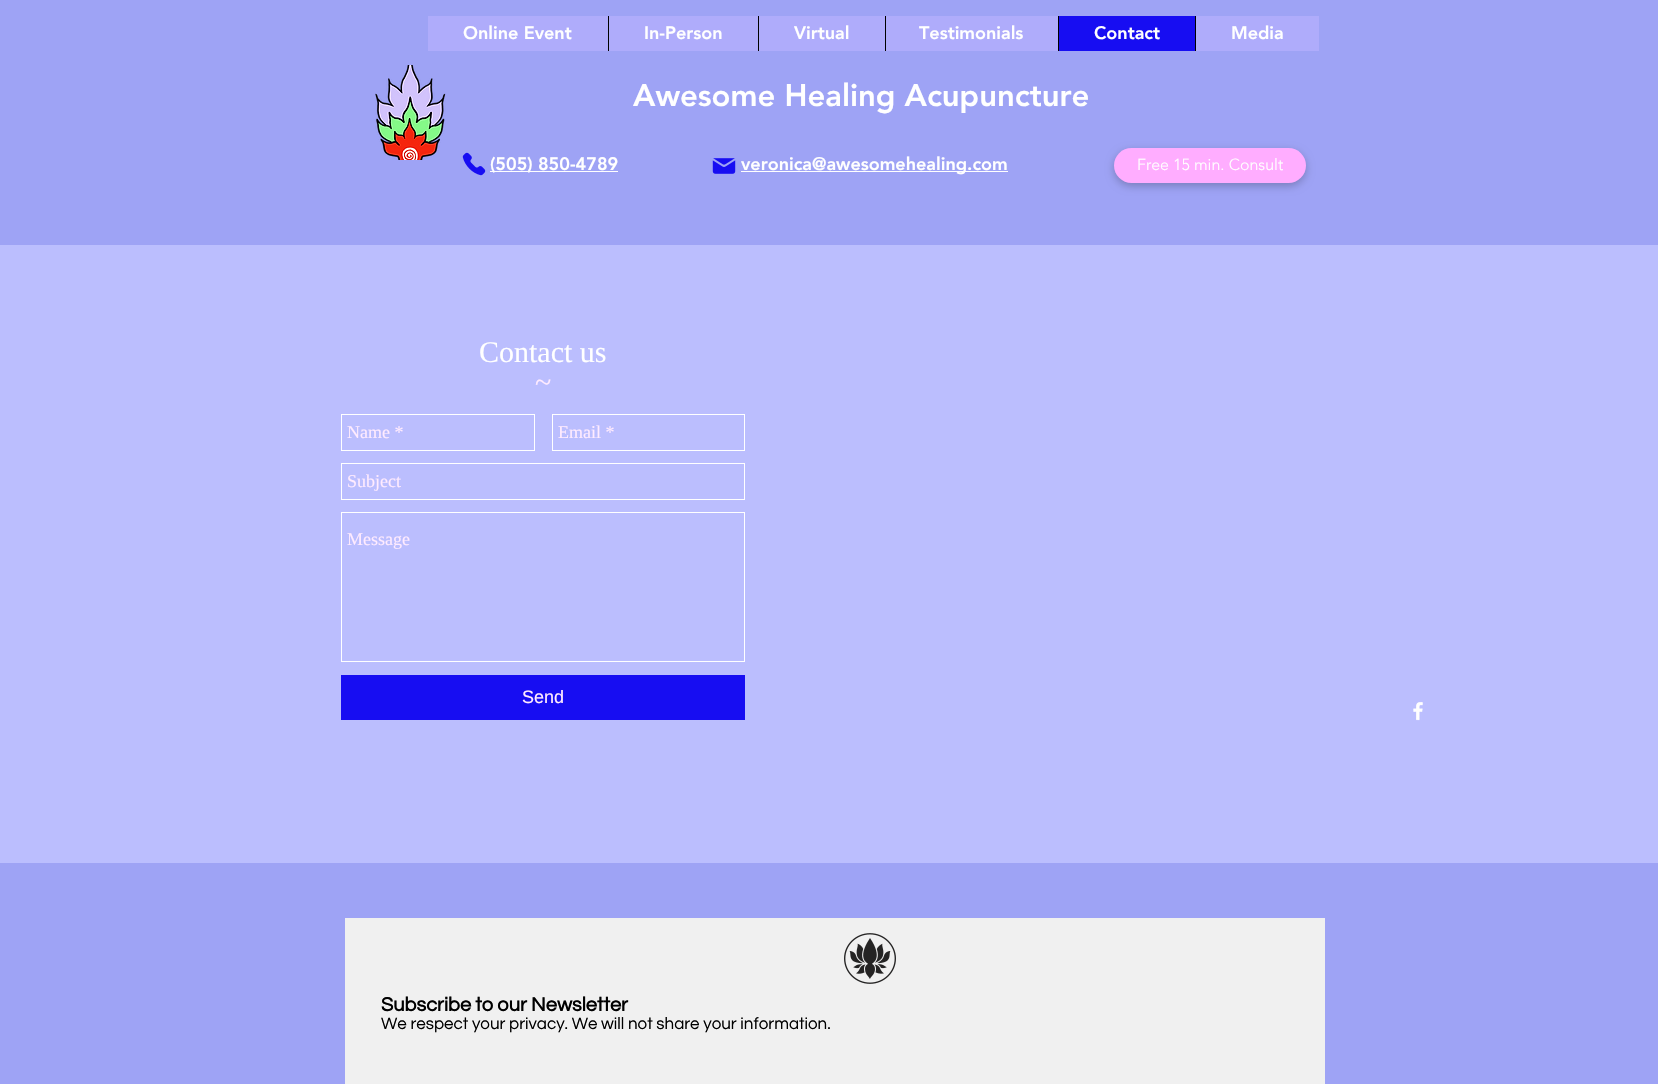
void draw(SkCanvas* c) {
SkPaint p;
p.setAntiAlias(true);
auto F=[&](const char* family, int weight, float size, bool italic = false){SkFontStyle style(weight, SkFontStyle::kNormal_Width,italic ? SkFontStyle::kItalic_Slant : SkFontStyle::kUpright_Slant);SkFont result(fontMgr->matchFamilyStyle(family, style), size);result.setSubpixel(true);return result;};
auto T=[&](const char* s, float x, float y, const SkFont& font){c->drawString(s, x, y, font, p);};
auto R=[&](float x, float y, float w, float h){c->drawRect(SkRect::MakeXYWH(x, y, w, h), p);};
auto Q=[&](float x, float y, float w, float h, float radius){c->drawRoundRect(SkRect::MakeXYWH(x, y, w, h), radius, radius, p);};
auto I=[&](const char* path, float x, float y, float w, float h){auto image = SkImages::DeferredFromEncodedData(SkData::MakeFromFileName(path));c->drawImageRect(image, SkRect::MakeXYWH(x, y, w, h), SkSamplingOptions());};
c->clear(0xffbbbefe);
p.setColor(0xff9ea3f5);
R(0,0,1658,245);
p.setColor(0xffafacfb);
R(428,16,891,35);
auto f1 = F("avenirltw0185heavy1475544",900,18);
p.setColor(0xffffffff);
T("Online Event",463,39,f1);
p.setColor(0xff000000);
R(608,16,1,35);
p.setColor(0xffffffff);
T("In-Person",644,39,f1);
p.setColor(0xff000000);
R(758,16,1,35);
p.setColor(0xffffffff);
T("Virtual",794,39,f1);
p.setColor(0xff000000);
R(885,16,1,35);
p.setColor(0xffffffff);
T("Testimonials",919,39,f1);
p.setColor(0xff170df2);
R(1059,16,136,35);
p.setColor(0xff000000);
R(1058,16,1,35);
p.setColor(0xffffffff);
T("Contact",1094,39,f1);
p.setColor(0xff000000);
R(1195,16,1,35);
p.setColor(0xffffffff);
T("Media",1231,39,f1);
I("1.png",375,65,71,95);
auto f2 = F("avenirltw0185heavy1475544",900,31);
T("Awesome Healing Acupuncture",633,106,f2);
I("2.png",462,152,24,24);
R(490,171,128,1);
T("(505) 850-4789",490,170,f1);
I("3.png",712,158,24,16);
R(741,171,267,1);
T("veronica@awesomehealing.com",741,170,f1);
p.setColor(0x3b000000);
p.setMaskFilter(SkMaskFilter::MakeBlur(kNormal_SkBlurStyle, 4.5));
c->drawRoundRect(SkRect::MakeXYWH(1114,151,192,35),17.5,17.5,p);
p.setMaskFilter(nullptr);
p.setColor(0xffffadff);
Q(1114,148,192,35,17.5);
auto f3 = F("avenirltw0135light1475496",300,16);
p.setColor(0xffffffff);
T("Free 15 min. Consult",1137,170,f3);
auto f4 = F("Liberation Serif",400,30);
T("Contact us",479,362,f4);
p.setColor(0xffffebff);
T("~",535,392,f4);
p.setStroke(true);
p.setStrokeWidth(1);
p.setColor(0xffffffff);
c->drawRect(SkRect::MakeXYWH(341.5,414.5,193,36),p);
auto f5 = F("Liberation Serif",400,18);
p.setStroke(false);
p.setColor(0xffffebff);
T("Name *",347,438,f5);
p.setStroke(true);
p.setColor(0xffffffff);
c->drawRect(SkRect::MakeXYWH(552.5,414.5,192,36),p);
p.setStroke(false);
p.setColor(0xffffebff);
T("Email *",558,438,f5);
p.setStroke(true);
p.setColor(0xffffffff);
c->drawRect(SkRect::MakeXYWH(341.5,463.5,403,36),p);
p.setStroke(false);
p.setColor(0xffffebff);
T("Subject",347,487,f5);
p.setStroke(true);
p.setColor(0xffffffff);
c->drawRect(SkRect::MakeXYWH(341.5,512.5,403,149),p);
p.setStroke(false);
p.setColor(0xffffebff);
T("Message",347,545,f5);
p.setColor(0xff170df2);
R(341,675,404,45);
auto f6 = F("Liberation Sans",400,18);
p.setColor(0xffffebff);
T("Send",522,703,f6);
I("4.png",1413,702,10,19);
p.setColor(0xff9ea3f5);
R(0,863,1658,221);
p.setColor(0xfff0f0f0);
R(345,918,980,166);
I("5.png",844,933,52,51);
auto f7 = F("Questrial",700,20);
p.setColor(0xff000000);
T("Subscribe to our Newsletter",381,1011,f7);
auto f8 = F("Questrial",400,17);
T("We respect your privacy. We will not share your information.",381,1029,f8);
}
